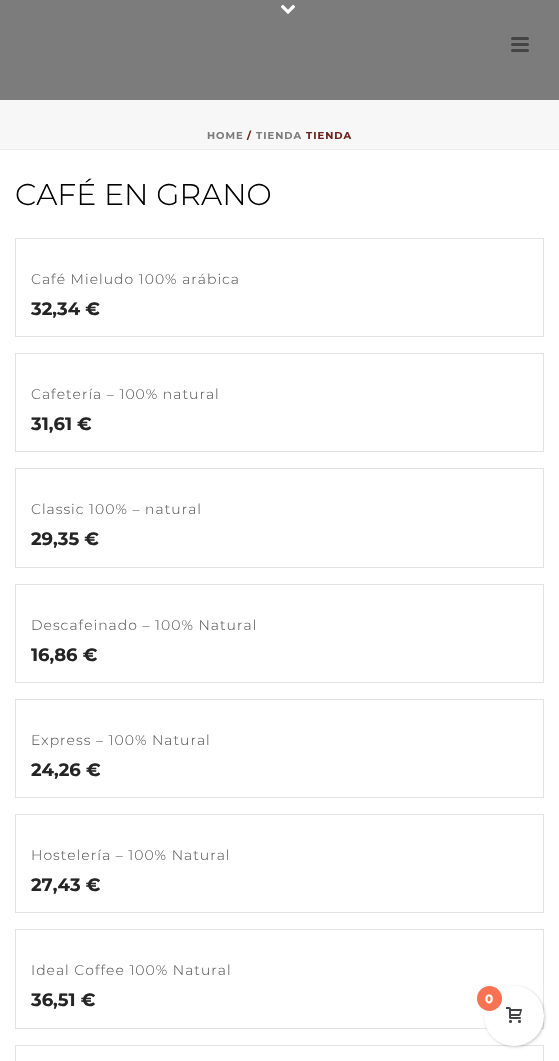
void draw(SkCanvas* c) {
SkPaint p;
p.setAntiAlias(true);
auto F=[&](const char* family, int weight, float size, bool italic = false){SkFontStyle style(weight, SkFontStyle::kNormal_Width,italic ? SkFontStyle::kItalic_Slant : SkFontStyle::kUpright_Slant);SkFont result(fontMgr->matchFamilyStyle(family, style), size);result.setSubpixel(true);return result;};
auto T=[&](const char* s, float x, float y, const SkFont& font){c->drawString(s, x, y, font, p);};
auto L=[&](const char* s, float x, float y, const SkFont& font, const SkPaint& ink, float letter, float word){std::vector<SkGlyphID> glyphs(font.countText(s, strlen(s), SkTextEncoding::kUTF8));std::vector<float> xs(glyphs.size());font.textToGlyphs(s, strlen(s), SkTextEncoding::kUTF8, glyphs);font.getXPos(glyphs, xs, x);float extra = 0;for (size_t i = 0; i < glyphs.size(); i++) {xs[i] += extra;extra += letter + word * (glyphs[i] == font.unicharToGlyph(' '));}c->drawTextBlob(SkTextBlob::MakeFromPosHGlyphs(glyphs, xs, y, font), 0, 0, ink);};
auto R=[&](float x, float y, float w, float h){c->drawRect(SkRect::MakeXYWH(x, y, w, h), p);};
auto Q=[&](float x, float y, float w, float h, float radius){c->drawRoundRect(SkRect::MakeXYWH(x, y, w, h), radius, radius, p);};
auto I=[&](const char* path, float x, float y, float w, float h){auto image = SkImages::DeferredFromEncodedData(SkData::MakeFromFileName(path));c->drawImageRect(image, SkRect::MakeXYWH(x, y, w, h), SkSamplingOptions());};
c->clear(0xffffffff);
p.setColor(0xfff7f7f7);
R(0,100,559,49);
p.setColor(0xffededed);
R(0,149,559,1);
p.setColor(0xff7c7c7c);
R(0,0,559,100);
I("1.png",280,4,16,10);
p.setColor(0xff444444);
Q(511,37,18,3,1.5);
Q(511,43,18,3,1.5);
Q(511,49,18,3,1.5);
auto f1 = F("Montserrat",700,10);
p.setColor(0xff7c7c7c);
L("HOME",207,139,f1,p,1,0);
p.setColor(0xff70221c);
L("/",247,139,f1,p,1,0);
p.setColor(0xff7c7c7c);
L("TIENDA",256,139,f1,p,1,0);
p.setColor(0xff70221c);
L("TIENDA",306,139,f1,p,1,0);
auto f2 = F("Montserrat",300,30);
p.setColor(0xff000000);
T("CAFÉ EN GRANO",15,205,f2);
p.setStroke(true);
p.setStrokeWidth(1);
p.setColor(0xffe3e3e3);
c->drawRect(SkRect::MakeXYWH(15.5,238.5,528,98),p);
auto f3 = F("Montserrat",300,14);
p.setStroke(false);
p.setColor(0xff5b5b5b);
L("Café Mieludo 100% arábica",31,284,f3,p,1,0);
auto f4 = F("Montserrat",700,18);
p.setColor(0xff252525);
T("32,34 €",31,315,f4);
p.setStroke(true);
p.setColor(0xffe3e3e3);
c->drawRect(SkRect::MakeXYWH(15.5,353.5,528,98),p);
p.setStroke(false);
p.setColor(0xff5b5b5b);
L("Cafetería – 100% natural",31,399,f3,p,1,0);
p.setColor(0xff252525);
T("31,61 €",31,430,f4);
p.setStroke(true);
p.setColor(0xffe3e3e3);
c->drawRect(SkRect::MakeXYWH(15.5,468.5,528,99),p);
p.setStroke(false);
p.setColor(0xff5b5b5b);
L("Classic 100% – natural",31,514,f3,p,1,0);
p.setColor(0xff252525);
T("29,35 €",31,545,f4);
p.setStroke(true);
p.setColor(0xffe3e3e3);
c->drawRect(SkRect::MakeXYWH(15.5,584.5,528,98),p);
p.setStroke(false);
p.setColor(0xff5b5b5b);
L("Descafeinado – 100% Natural",31,630,f3,p,1,0);
p.setColor(0xff252525);
T("16,86 €",31,661,f4);
p.setStroke(true);
p.setColor(0xffe3e3e3);
c->drawRect(SkRect::MakeXYWH(15.5,699.5,528,98),p);
p.setStroke(false);
p.setColor(0xff5b5b5b);
L("Express – 100% Natural",31,745,f3,p,1,0);
p.setColor(0xff252525);
T("24,26 €",31,776,f4);
p.setStroke(true);
p.setColor(0xffe3e3e3);
c->drawRect(SkRect::MakeXYWH(15.5,814.5,528,98),p);
p.setStroke(false);
p.setColor(0xff5b5b5b);
L("Hostelería – 100% Natural",31,860,f3,p,1,0);
p.setColor(0xff252525);
T("27,43 €",31,891,f4);
p.setStroke(true);
p.setColor(0xffe3e3e3);
c->drawRect(SkRect::MakeXYWH(15.5,929.5,528,99),p);
p.setStroke(false);
p.setColor(0xff5b5b5b);
L("Ideal Coffee 100% Natural",31,975,f3,p,1,0);
p.setColor(0xff252525);
T("36,51 €",31,1006,f4);
p.setStroke(true);
p.setColor(0xffe3e3e3);
c->drawRect(SkRect::MakeXYWH(15.5,1045.5,528,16),p);
p.setStroke(false);
p.setColor(0x33000000);
p.setMaskFilter(SkMaskFilter::MakeBlur(kNormal_SkBlurStyle, 1.5));
c->drawRoundRect(SkRect::MakeXYWH(485,987,60,60),30,30,p);
p.setMaskFilter(nullptr);
p.setColor(0xffffffff);
c->drawCircle(514,1016,30,p);
p.setColor(0xfff97352);
c->drawCircle(489.5,998.5,12.5,p);
auto f5 = F("Montserrat",700,12);
p.setColor(0xffffffff);
T("0",485,1003,f5);
I("2.png",506,1007,16,16);
}
